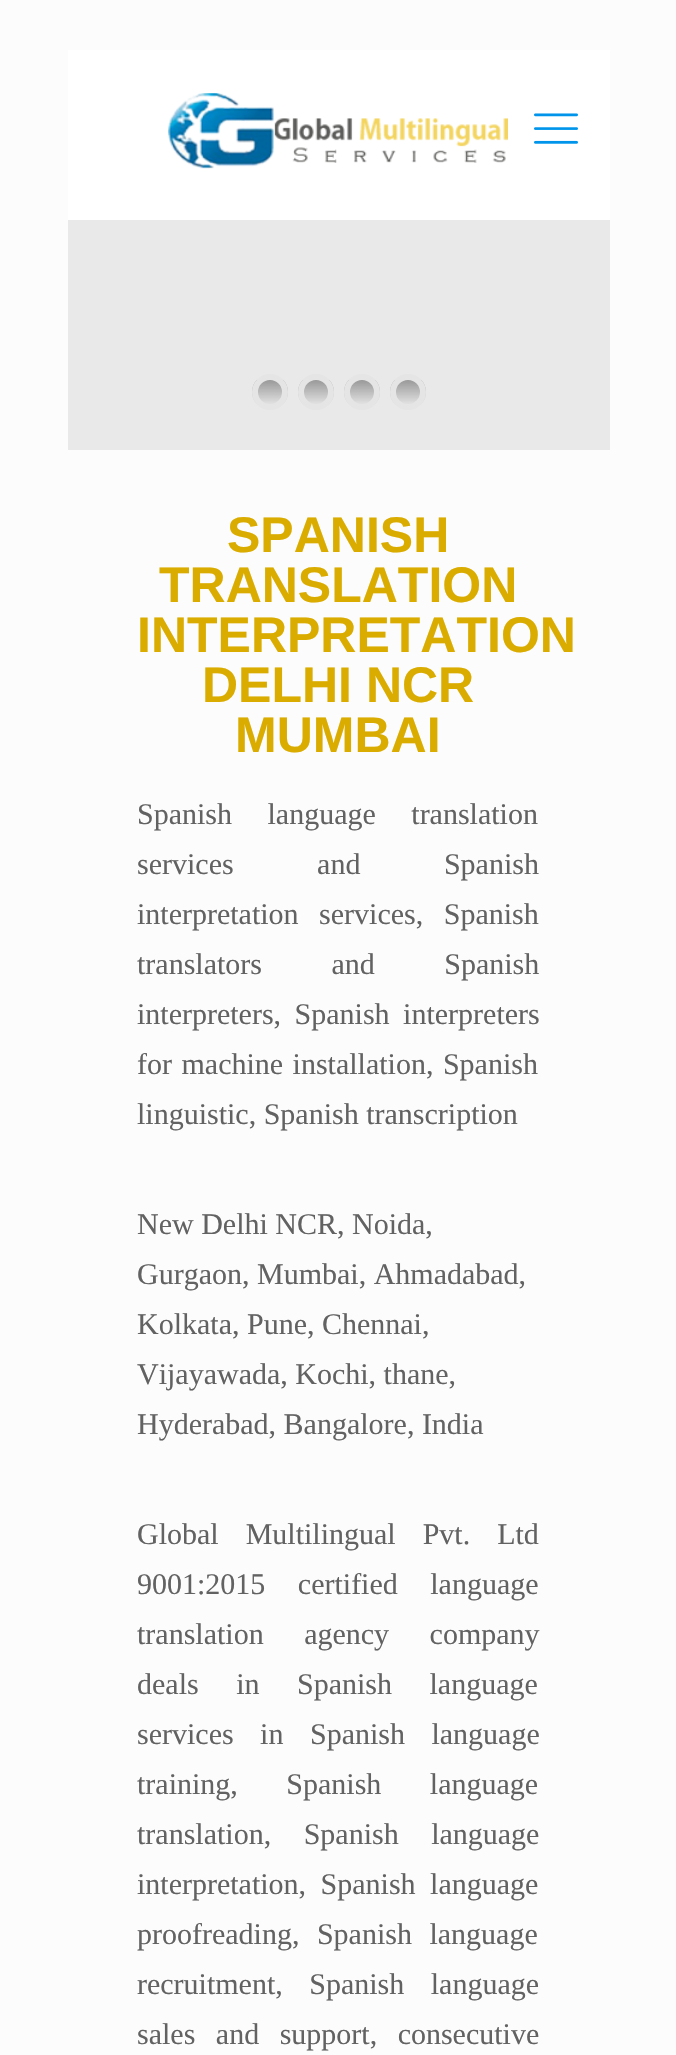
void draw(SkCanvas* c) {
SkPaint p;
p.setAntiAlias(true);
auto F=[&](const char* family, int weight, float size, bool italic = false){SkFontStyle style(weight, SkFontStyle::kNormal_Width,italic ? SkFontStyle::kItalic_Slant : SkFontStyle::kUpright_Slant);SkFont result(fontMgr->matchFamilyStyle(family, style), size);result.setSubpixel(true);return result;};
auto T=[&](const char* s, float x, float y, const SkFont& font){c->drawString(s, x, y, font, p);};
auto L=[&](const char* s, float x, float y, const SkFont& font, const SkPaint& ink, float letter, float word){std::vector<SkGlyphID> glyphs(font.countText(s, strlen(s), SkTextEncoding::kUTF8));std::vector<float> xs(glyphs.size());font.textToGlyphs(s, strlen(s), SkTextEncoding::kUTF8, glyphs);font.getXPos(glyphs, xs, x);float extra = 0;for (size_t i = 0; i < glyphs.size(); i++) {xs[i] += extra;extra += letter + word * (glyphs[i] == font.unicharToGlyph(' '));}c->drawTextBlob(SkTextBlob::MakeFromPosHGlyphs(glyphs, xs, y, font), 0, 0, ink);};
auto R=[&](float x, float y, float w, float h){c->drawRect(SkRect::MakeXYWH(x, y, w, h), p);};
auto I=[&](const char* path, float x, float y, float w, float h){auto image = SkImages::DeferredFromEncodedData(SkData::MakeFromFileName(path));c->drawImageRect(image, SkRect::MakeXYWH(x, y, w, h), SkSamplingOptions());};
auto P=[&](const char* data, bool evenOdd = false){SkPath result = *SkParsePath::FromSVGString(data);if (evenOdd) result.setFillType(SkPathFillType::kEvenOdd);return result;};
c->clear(0xfffcfcfc);
p.setColor(0xffffffff);
R(68,50,542,170);
I("1.png",168,93,340,76);
I("2.png",534,113,44,31);
p.setColor(0xffe9e9e9);
R(68,220,542,230);
c->save();
c->clipPath(P("M270 374c10 0 18 8 18 18c0 10-8 18-18 18c-10 0-18-8-18-18c0-10 8-18 18-18z"),true);
{
const SkColor colors[] = {0xff999999,0xffe1e1e1};
const float stops[] = {0,1};
const SkPoint ends[] = {{270,380}, {270,404}};
p.setShader(SkGradientShader::MakeLinear(ends, colors, stops, 2, SkTileMode::kClamp));
p.setAlpha(255);
}
R(252,380,36,24);
c->restore();
p.setStroke(true);
p.setStrokeWidth(6);
p.setShader(nullptr);
p.setColor(0xffe5e5e5);
c->drawCircle(270,392,15,p);
c->save();
c->clipPath(P("M316 374c10 0 18 8 18 18c0 10-8 18-18 18c-10 0-18-8-18-18c0-10 8-18 18-18z"),true);
p.setStroke(false);
{
const SkColor colors[] = {0xff999999,0xffe1e1e1};
const float stops[] = {0,1};
const SkPoint ends[] = {{316,380}, {316,404}};
p.setShader(SkGradientShader::MakeLinear(ends, colors, stops, 2, SkTileMode::kClamp));
p.setAlpha(255);
}
R(298,380,36,24);
c->restore();
p.setStroke(true);
p.setShader(nullptr);
p.setColor(0xffe5e5e5);
c->drawCircle(316,392,15,p);
c->save();
c->clipPath(P("M362 374c10 0 18 8 18 18c0 10-8 18-18 18c-10 0-18-8-18-18c0-10 8-18 18-18z"),true);
p.setStroke(false);
{
const SkColor colors[] = {0xff999999,0xffe1e1e1};
const float stops[] = {0,1};
const SkPoint ends[] = {{362,380}, {362,404}};
p.setShader(SkGradientShader::MakeLinear(ends, colors, stops, 2, SkTileMode::kClamp));
p.setAlpha(255);
}
R(344,380,36,24);
c->restore();
p.setStroke(true);
p.setShader(nullptr);
p.setColor(0xffe5e5e5);
c->drawCircle(362,392,15,p);
c->save();
c->clipPath(P("M408 374c10 0 18 8 18 18c0 10-8 18-18 18c-10 0-18-8-18-18c0-10 8-18 18-18z"),true);
p.setStroke(false);
{
const SkColor colors[] = {0xff999999,0xffe1e1e1};
const float stops[] = {0,1};
const SkPoint ends[] = {{408,380}, {408,404}};
p.setShader(SkGradientShader::MakeLinear(ends, colors, stops, 2, SkTileMode::kClamp));
p.setAlpha(255);
}
R(390,380,36,24);
c->restore();
p.setStroke(true);
p.setShader(nullptr);
p.setColor(0xffe5e5e5);
c->drawCircle(408,392,15,p);
auto f1 = F("Liberation Sans",700,50);
p.setStroke(false);
p.setColor(0xffdbac00);
T("SPANISH",227,552,f1);
T("TRANSLATION",159,602,f1);
T("INTERPRETATION",137,652,f1);
T("DELHI NCR",202,702,f1);
T("MUMBAI",235,752,f1);
auto f2 = F("Liberation Serif",400,30);
p.setColor(0xff626262);
L("Spanish language translation",137,824,f2,p,0,28);
L("services and Spanish",137,874,f2,p,0,76);
L("interpretation services, Spanish",137,924,f2,p,0,13);
L("translators and Spanish",137,974,f2,p,0,62);
L("interpreters, Spanish interpreters",137,1024,f2,p,0,6);
L("for machine installation, Spanish",137,1074,f2,p,0,2);
T("linguistic, Spanish transcription",137,1124,f2);
T("New Delhi NCR, Noida,",137,1234,f2);
T("Gurgaon, Mumbai, Ahmadabad,",137,1284,f2);
T("Kolkata, Pune, Chennai,",137,1334,f2);
T("Vijayawada, Kochi, thane,",137,1384,f2);
T("Hyderabad, Bangalore, India",137,1434,f2);
L("Global Multilingual Pvt. Ltd",137,1544,f2,p,0,19.5);
L("9001:2015 certified language",137,1594,f2,p,0,25);
L("translation agency company",137,1644,f2,p,0,33);
L("deals in Spanish language",137,1694,f2,p,0,30);
L("services in Spanish language",137,1744,f2,p,0,19);
L("training, Spanish language",137,1794,f2,p,0,41);
L("translation, Spanish language",137,1844,f2,p,0,25);
L("interpretation, Spanish language",137,1894,f2,p,0,7);
L("proofreading, Spanish language",137,1944,f2,p,0,10);
L("recruitment, Spanish language",137,1994,f2,p,0,19);
L("sales and support, consecutive",137,2044,f2,p,0,13);
}
